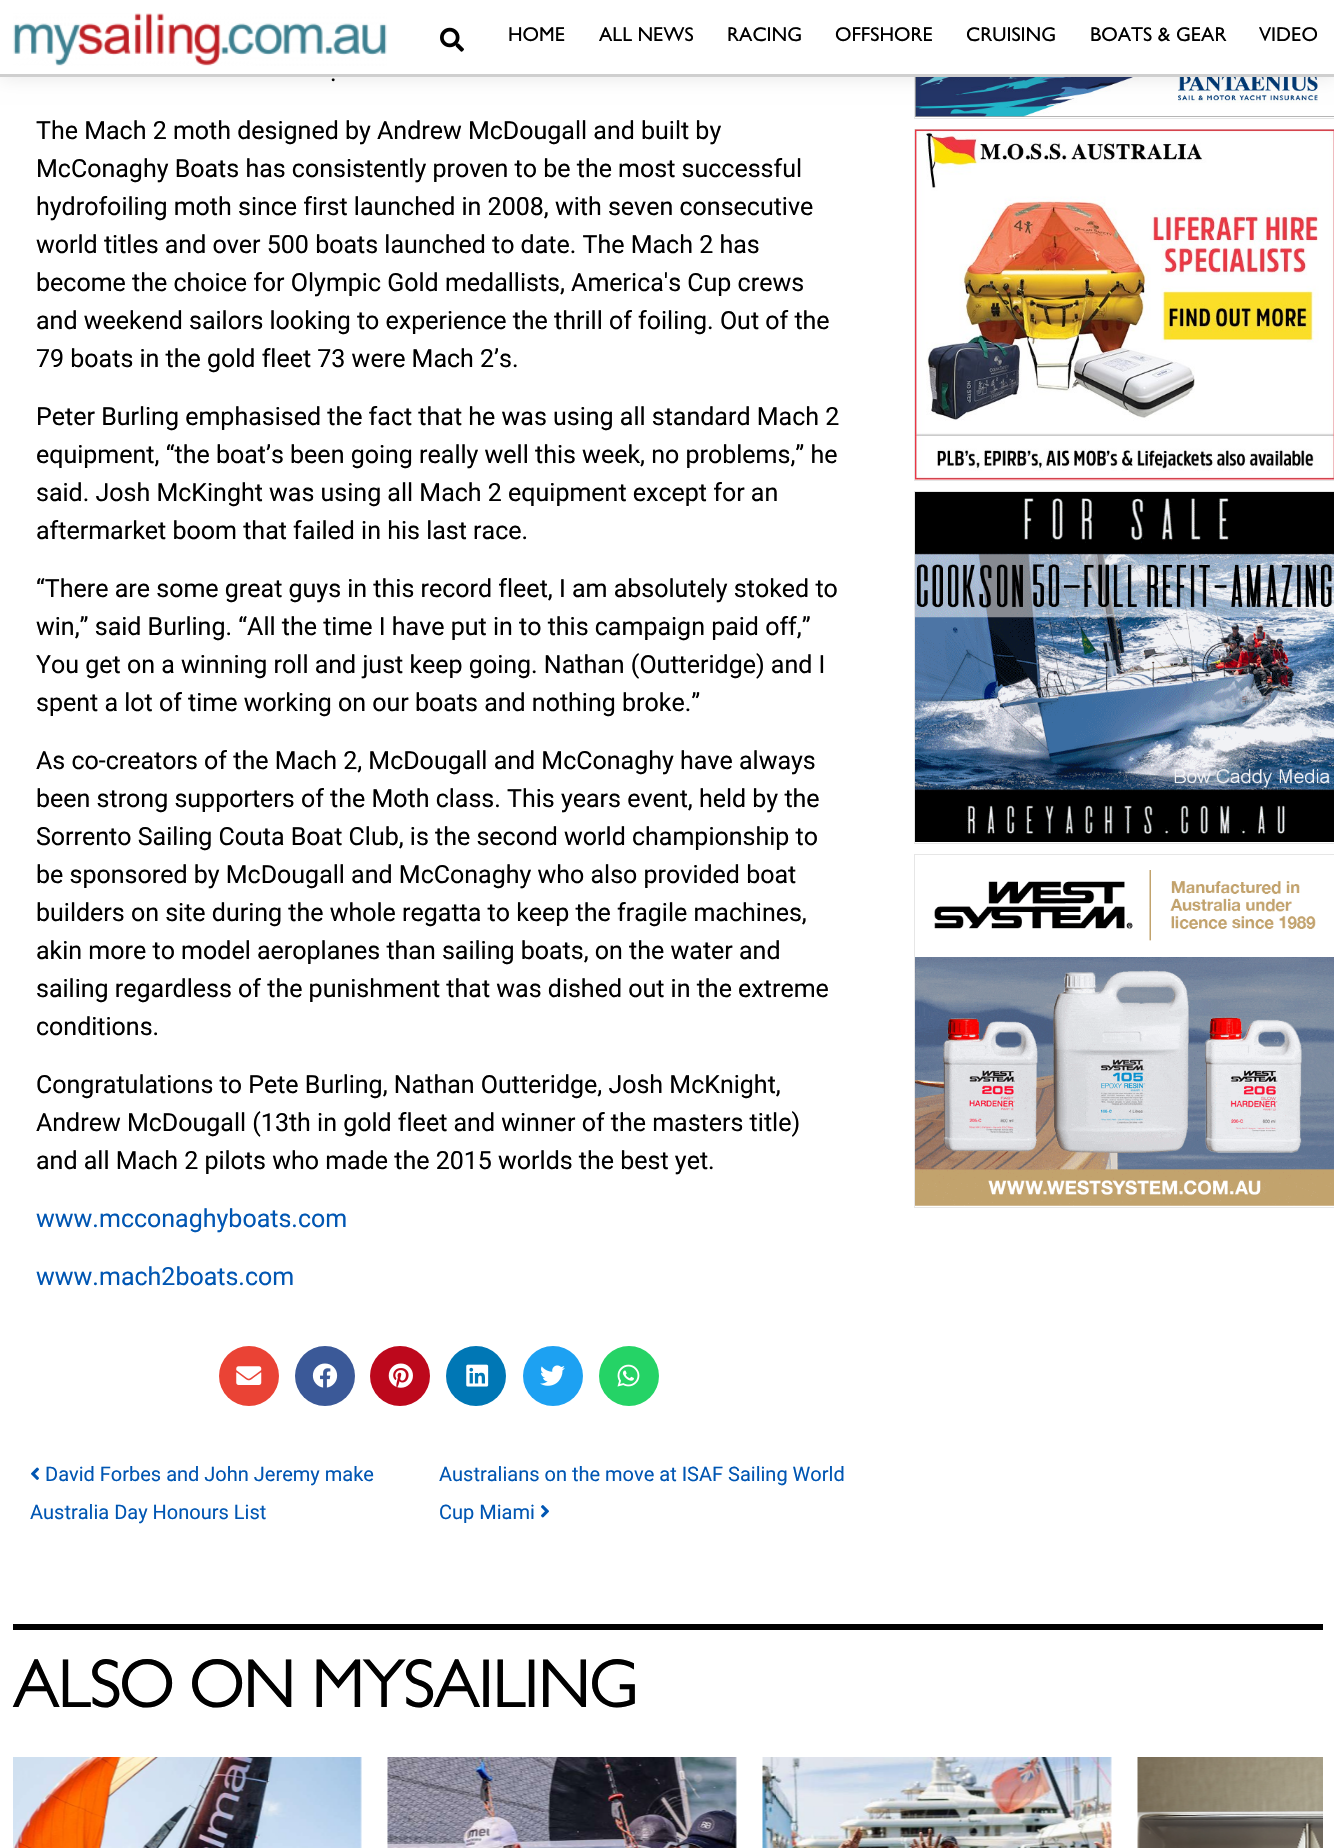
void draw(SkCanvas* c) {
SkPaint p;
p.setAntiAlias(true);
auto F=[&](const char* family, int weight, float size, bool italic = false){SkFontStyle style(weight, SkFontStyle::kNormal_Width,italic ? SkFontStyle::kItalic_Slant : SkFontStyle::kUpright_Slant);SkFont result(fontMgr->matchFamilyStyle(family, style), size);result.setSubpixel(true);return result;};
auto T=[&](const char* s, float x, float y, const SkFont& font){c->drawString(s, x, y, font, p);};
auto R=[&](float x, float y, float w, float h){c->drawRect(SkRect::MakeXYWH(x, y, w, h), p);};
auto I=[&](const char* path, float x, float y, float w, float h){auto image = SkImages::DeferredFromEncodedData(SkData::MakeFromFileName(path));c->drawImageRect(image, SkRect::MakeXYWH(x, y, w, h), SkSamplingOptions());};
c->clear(0xffffffff);
I("11.png",915,77,419,40);
p.setStroke(true);
p.setStrokeWidth(1);
p.setColor(0xffe6e6e6);
c->drawRect(SkRect::MakeXYWH(914.5,-.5,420,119),p);
p.setStroke(false);
p.setColor(0x17000000);
p.setMaskFilter(SkMaskFilter::MakeBlur(kNormal_SkBlurStyle, 9));
c->drawRect(SkRect::MakeXYWH(0,1,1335,77),p);
p.setMaskFilter(nullptr);
p.setColor(0xffffffff);
R(0,0,1334,74);
p.setColor(0xffcfcfcf);
R(0,74,1334,3);
I("1.png",13,13,374,53);
I("2.png",440,27,24,25);
auto f1 = F("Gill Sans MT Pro",500,20);
p.setColor(0xff000000);
T("HOME",508,41,f1);
T("ALL NEWS",599,41,f1);
T("RACING",727,41,f1);
T("OFFSHORE",835,41,f1);
T("CRUISING",966,41,f1);
T("BOATS & GEAR",1090,41,f1);
T("VIDEO",1259,41,f1);
auto f2 = F("Roboto",400,25);
T(".",330,81,f2);
T("The Mach 2 moth designed by Andrew McDougall and built by",36,139,f2);
T("McConaghy Boats has consistently proven to be the most successful",36,177,f2);
T("hydrofoiling moth since first launched in 2008, with seven consecutive",36,215,f2);
T("world titles and over 500 boats launched to date. The Mach 2 has",36,253,f2);
T("become the choice for Olympic Gold medallists, America's Cup crews",36,291,f2);
T("and weekend sailors looking to experience the thrill of foiling. Out of the",36,329,f2);
T("79 boats in the gold fleet 73 were Mach 2’s.",36,367,f2);
T("Peter Burling emphasised the fact that he was using all standard Mach 2",36,425,f2);
T("equipment, “the boat’s been going really well this week, no problems,” he",36,463,f2);
T("said. Josh McKinght was using all Mach 2 equipment except for an",36,501,f2);
T("aftermarket boom that failed in his last race.",36,539,f2);
T("“There are some great guys in this record fleet, I am absolutely stoked to",36,597,f2);
T("win,” said Burling. “All the time I have put in to this campaign paid off,”",36,635,f2);
T("You get on a winning roll and just keep going. Nathan (Outteridge) and I",36,673,f2);
T("spent a lot of time working on our boats and nothing broke.”",36,711,f2);
T("As co-creators of the Mach 2, McDougall and McConaghy have always",36,769,f2);
T("been strong supporters of the Moth class. This years event, held by the",36,807,f2);
T("Sorrento Sailing Couta Boat Club, is the second world championship to",36,845,f2);
T("be sponsored by McDougall and McConaghy who also provided boat",36,883,f2);
T("builders on site during the whole regatta to keep the fragile machines,",36,921,f2);
T("akin more to model aeroplanes than sailing boats, on the water and",36,959,f2);
T("sailing regardless of the punishment that was dished out in the extreme",36,997,f2);
T("conditions.",36,1035,f2);
T("Congratulations to Pete Burling, Nathan Outteridge, Josh McKnight,",36,1093,f2);
T("Andrew McDougall (13th in gold fleet and winner of the masters title)",36,1131,f2);
T("and all Mach 2 pilots who made the 2015 worlds the best yet.",36,1169,f2);
p.setColor(0xff0056b3);
T("www.mcconaghyboats.com",36,1227,f2);
T("www.mach2boats.com",36,1285,f2);
p.setColor(0xffea4335);
c->drawCircle(249,1376,30,p);
I("3.png",236,1366,26,19);
p.setColor(0xff3b5998);
c->drawCircle(325,1376,30,p);
I("4.png",312,1363,26,25);
p.setColor(0xffbd081c);
c->drawCircle(400,1376,30,p);
I("5.png",388,1363,25,25);
p.setColor(0xff0077b5);
c->drawCircle(476,1376,30,p);
I("6.png",466,1364,23,23);
p.setColor(0xff1da1f2);
c->drawCircle(553,1376,30,p);
I("7.png",540,1365,25,21);
p.setColor(0xff25d366);
c->drawCircle(629,1376,30,p);
I("8.png",617,1364,23,23);
I("9.png",31,1467,8,13);
auto f3 = F("Roboto",400,20);
p.setColor(0xff0056b3);
T("David Forbes and John Jeremy make",45,1481,f3);
T("Australia Day Honours List",30,1519,f3);
T("Australians on the move at ISAF Sailing World",439,1481,f3);
T("Cup Miami",439,1519,f3);
I("10.png",541,1505,8,13);
I("12.png",915,129,419,351);
p.setStroke(true);
p.setColor(0x1a000000);
c->drawRect(SkRect::MakeXYWH(914.5,129.5,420,351),p);
I("13.png",915,492,419,350);
p.setColor(0xffe6e6e6);
c->drawRect(SkRect::MakeXYWH(914.5,491.5,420,352),p);
I("14.png",915,870,419,336);
c->drawRect(SkRect::MakeXYWH(914.5,854.5,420,353),p);
p.setStroke(false);
p.setColor(0xff000000);
R(13,1624,1310,6);
auto f4 = F("Gill Sans MT Pro",700,66.75,true);
T("ALSO ON MYSAILING",13,1707,f4);
I("15.png",13,1757,349,91);
I("16.png",387,1757,350,91);
I("17.png",762,1757,350,91);
I("18.png",1137,1757,186,91);
}
